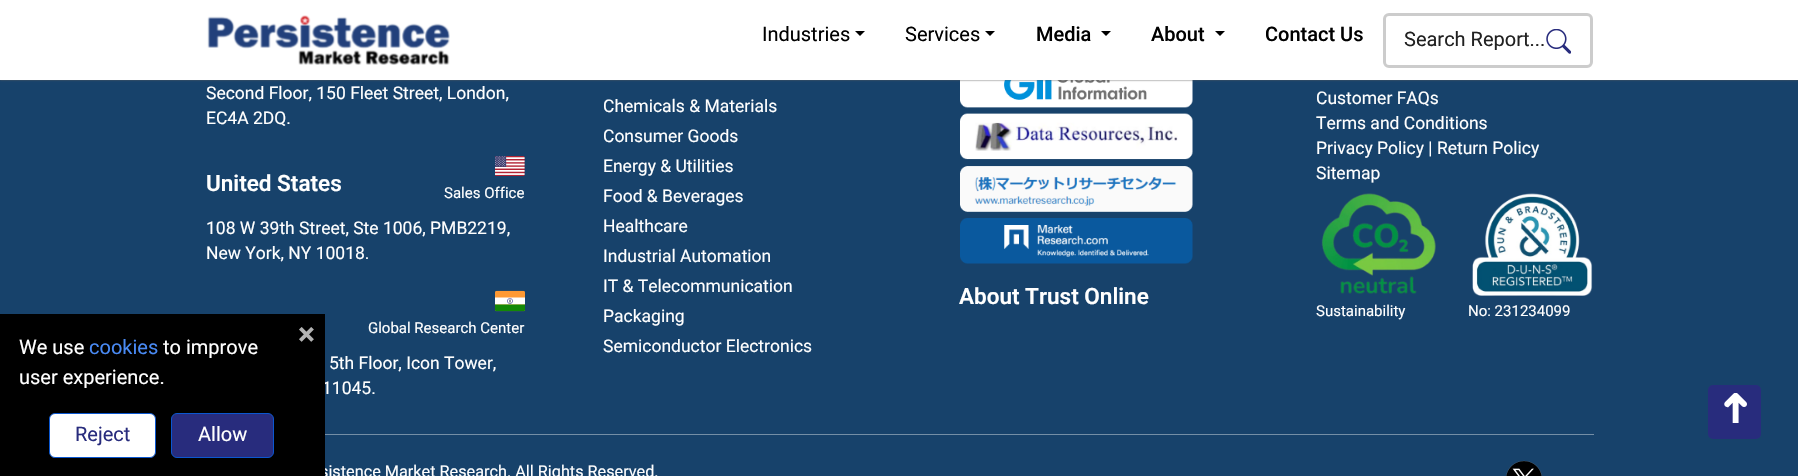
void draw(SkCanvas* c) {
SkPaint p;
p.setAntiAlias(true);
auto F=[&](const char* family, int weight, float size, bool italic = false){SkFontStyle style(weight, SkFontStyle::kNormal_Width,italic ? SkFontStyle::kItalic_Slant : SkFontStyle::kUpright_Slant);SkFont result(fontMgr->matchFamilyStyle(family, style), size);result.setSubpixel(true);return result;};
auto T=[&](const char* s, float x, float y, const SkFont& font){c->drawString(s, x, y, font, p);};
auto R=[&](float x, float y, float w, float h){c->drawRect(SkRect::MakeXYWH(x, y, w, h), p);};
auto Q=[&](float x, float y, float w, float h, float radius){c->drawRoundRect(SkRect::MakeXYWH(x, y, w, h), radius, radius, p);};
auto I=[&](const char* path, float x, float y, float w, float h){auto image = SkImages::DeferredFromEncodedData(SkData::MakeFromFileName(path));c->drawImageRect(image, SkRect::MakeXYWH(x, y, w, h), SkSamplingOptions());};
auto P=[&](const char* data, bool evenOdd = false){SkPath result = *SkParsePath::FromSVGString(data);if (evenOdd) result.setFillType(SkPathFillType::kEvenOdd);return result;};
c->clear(0xff17426b);
I("5.png",960,80,233,184);
p.setColor(0xff5a5a5a);
p.setMaskFilter(SkMaskFilter::MakeBlur(kNormal_SkBlurStyle, 1));
c->drawRect(SkRect::MakeXYWH(0,0,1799,80),p);
p.setMaskFilter(nullptr);
p.setColor(0xffffffff);
R(0,0,1798,80);
I("1.png",207,15,243,50);
auto f1 = F("Roboto",400,20);
p.setColor(0xff000000);
T("Industries",762,41,f1);
c->drawPath(P("M855 31h10l-5 5z"),p);
T("Services",905,41,f1);
c->drawPath(P("M985 31h10l-5 5z"),p);
auto f2 = F("Roboto",500,20);
T("Media",1036,41,f2);
c->drawPath(P("M1101 31h10l-5 5z"),p);
T("About",1151,41,f2);
c->drawPath(P("M1215 31h10l-5 5z"),p);
T("Contact Us",1265,41,f2);
p.setStroke(true);
p.setStrokeWidth(3);
p.setColor(0xffcccccc);
c->drawRoundRect(SkRect::MakeXYWH(1384.5,14.5,207,52),4.5,4.5,p);
p.setStroke(false);
p.setColor(0xff212121);
T("Search Report...",1404,46,f1);
I("2.png",1546,29,25,25);
auto f3 = F("Roboto",400,17.5);
p.setColor(0xffffffff);
T("11045.",322,394,f3);
auto f4 = F("Roboto",400,16.25);
T("sistence Market Research. All Rights Reserved.",320,477,f4);
p.setColor(0xff000000);
R(0,314,325,162);
auto f5 = F("Roboto",700,32);
p.setColor(0xffb3b3b3);
T("×",298,345,f5);
p.setColor(0xffffffff);
T("We use",19,354,f1);
p.setColor(0xff498af4);
T("cookies",89,354,f1);
p.setColor(0xffffffff);
T("to improve",163,354,f1);
T("user experience.",19,384,f1);
c->drawRoundRect(SkRect::MakeXYWH(49.5,413.5,106,44),5.5,5.5,p);
p.setStroke(true);
p.setStrokeWidth(1);
p.setColor(0xff0b57d0);
c->drawRoundRect(SkRect::MakeXYWH(49.5,413.5,106,44),5.5,5.5,p);
p.setStroke(false);
p.setColor(0xff282c7d);
T("Reject",75,441,f1);
c->drawRoundRect(SkRect::MakeXYWH(171.5,413.5,102,44),5.5,5.5,p);
p.setStroke(true);
p.setColor(0xff0b57d0);
c->drawRoundRect(SkRect::MakeXYWH(171.5,413.5,102,44),5.5,5.5,p);
p.setStroke(false);
p.setColor(0xffffffff);
T("Allow",198,441,f1);
T("Second Floor, 150 Fleet Street, London,",206,99,f3);
T("EC4A 2DQ.",206,124,f3);
auto f6 = F("Roboto",600,22.5);
T("United States",206,191,f6);
I("3.png",495,156,30,20);
auto f7 = F("Roboto",400,15);
T("Sales Office",444,198,f7);
T("108 W 39th Street, Ste 1006, PMB2219,",206,234,f3);
T("New York, NY 10018.",206,259,f3);
I("4.png",495,290,30,22);
T("Global Research Center",368,333,f7);
T("5th Floor, Icon Tower,",329,369,f3);
T("Chemicals & Materials",603,112,f3);
T("Consumer Goods",603,142,f3);
T("Energy & Utilities",603,172,f3);
T("Food & Beverages",603,202,f3);
T("Healthcare",603,232,f3);
T("Industrial Automation",603,262,f3);
T("IT & Telecommunication",603,292,f3);
T("Packaging",603,322,f3);
T("Semiconductor Electronics",603,352,f3);
T("About Trust Online",959,304,f6);
T("Customer FAQs",1316,104,f3);
T("Terms and Conditions",1316,129,f3);
T("Privacy Policy | Return Policy",1316,154,f3);
T("Sitemap",1316,179,f3);
I("6.png",1321,193,115,101);
T("Sustainability",1316,316,f7);
I("7.png",1472,193,121,103);
T("No: 231234099",1468,316,f7);
p.setColor(0xff748ea6);
R(325,434,1269,1);
I("8.png",1506,460,36,16);
p.setColor(0xff282c7d);
Q(1708,385,53,54,5);
I("9.png",1724,393,23,30);
}
